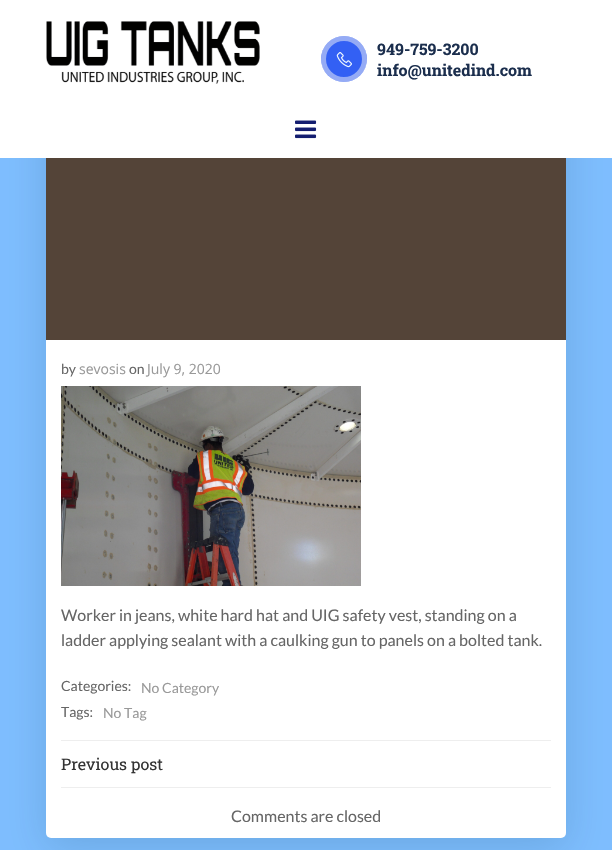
void draw(SkCanvas* c) {
SkPaint p;
p.setAntiAlias(true);
auto F=[&](const char* family, int weight, float size, bool italic = false){SkFontStyle style(weight, SkFontStyle::kNormal_Width,italic ? SkFontStyle::kItalic_Slant : SkFontStyle::kUpright_Slant);SkFont result(fontMgr->matchFamilyStyle(family, style), size);result.setSubpixel(true);return result;};
auto T=[&](const char* s, float x, float y, const SkFont& font){c->drawString(s, x, y, font, p);};
auto R=[&](float x, float y, float w, float h){c->drawRect(SkRect::MakeXYWH(x, y, w, h), p);};
auto Q=[&](float x, float y, float w, float h, float radius){c->drawRoundRect(SkRect::MakeXYWH(x, y, w, h), radius, radius, p);};
auto I=[&](const char* path, float x, float y, float w, float h){auto image = SkImages::DeferredFromEncodedData(SkData::MakeFromFileName(path));c->drawImageRect(image, SkRect::MakeXYWH(x, y, w, h), SkSamplingOptions());};
c->clear(0xff7ebdfe);
p.setColor(0x2601334a);
p.setMaskFilter(SkMaskFilter::MakeBlur(kNormal_SkBlurStyle, 20));
c->drawRoundRect(SkRect::MakeXYWH(46,50,520,798),5,5,p);
p.setMaskFilter(nullptr);
p.setColor(0xffffffff);
Q(46,40,520,798,5);
R(0,0,612,158);
I("1.png",46,21,214,63);
p.setColor(0xff3360f4);
c->drawCircle(344,59,23,p);
p.setStroke(true);
p.setStrokeWidth(5);
p.setColor(0x80f6f5f5);
c->drawCircle(344,59,20.5,p);
I("2.png",336,52,16,16);
auto f1 = F("Roboto Slab",700,16);
p.setStroke(false);
p.setColor(0xff1b2e4d);
T("949-759-3200",377,55,f1);
T("info@unitedind.com",377,76,f1);
I("3.png",295,120,22,19);
p.setColor(0xff544438);
R(46,158,520,182);
auto f2 = F("Lato",400,14);
p.setColor(0xff666666);
T("by",61,374,f2);
auto f3 = F("Open Sans",400,14);
p.setColor(0xff999999);
T("sevosis",79,374,f3);
p.setColor(0xff666666);
T("on",129,374,f2);
p.setColor(0xff999999);
T("July 9, 2020",147,374,f3);
I("4.png",61,386,300,200);
auto f4 = F("Lato",400,16);
p.setColor(0xff666666);
T("Worker in jeans, white hard hat and UIG safety vest, standing on a",61,621,f4);
T("ladder applying sealant with a caulking gun to panels on a bolted tank.",61,646,f4);
T("Categories:",61,691,f2);
p.setColor(0xff999999);
T("No Category",141,693,f2);
p.setColor(0xff666666);
T("Tags:",61,717,f2);
p.setColor(0xff999999);
T("No Tag",103,718,f2);
p.setColor(0xffeeeeee);
R(61,740,490,1);
auto f5 = F("Roboto Slab",400,16);
p.setColor(0xff333333);
T("Previous post",61,770,f5);
p.setColor(0xffeeeeee);
R(61,787,490,1);
p.setColor(0xff666666);
T("Comments are closed",231,822,f4);
}
